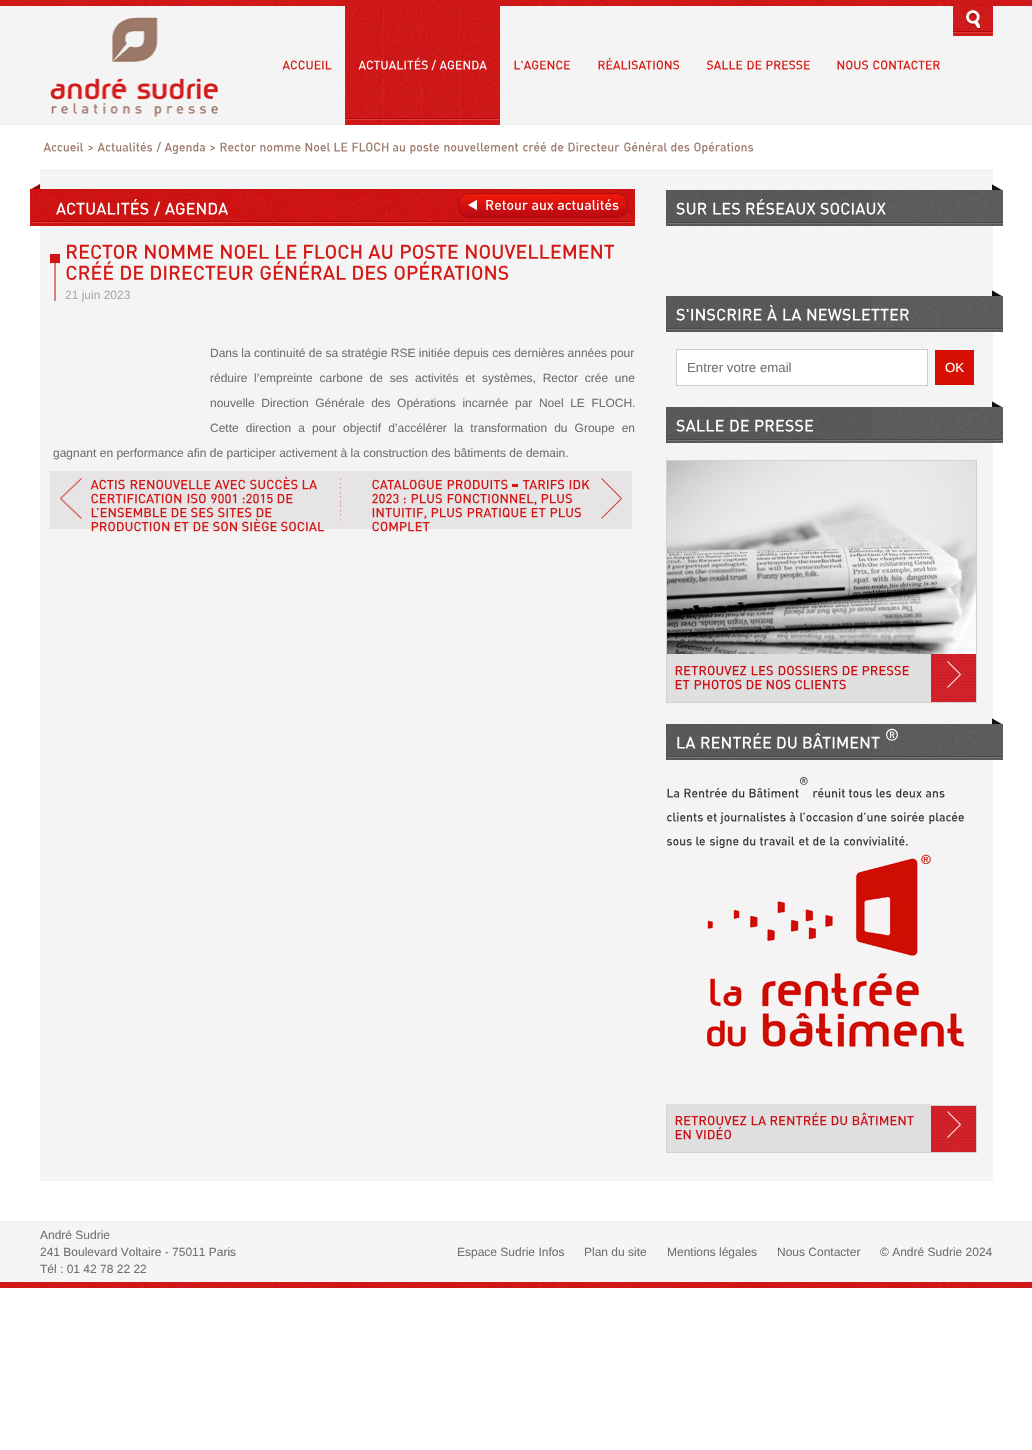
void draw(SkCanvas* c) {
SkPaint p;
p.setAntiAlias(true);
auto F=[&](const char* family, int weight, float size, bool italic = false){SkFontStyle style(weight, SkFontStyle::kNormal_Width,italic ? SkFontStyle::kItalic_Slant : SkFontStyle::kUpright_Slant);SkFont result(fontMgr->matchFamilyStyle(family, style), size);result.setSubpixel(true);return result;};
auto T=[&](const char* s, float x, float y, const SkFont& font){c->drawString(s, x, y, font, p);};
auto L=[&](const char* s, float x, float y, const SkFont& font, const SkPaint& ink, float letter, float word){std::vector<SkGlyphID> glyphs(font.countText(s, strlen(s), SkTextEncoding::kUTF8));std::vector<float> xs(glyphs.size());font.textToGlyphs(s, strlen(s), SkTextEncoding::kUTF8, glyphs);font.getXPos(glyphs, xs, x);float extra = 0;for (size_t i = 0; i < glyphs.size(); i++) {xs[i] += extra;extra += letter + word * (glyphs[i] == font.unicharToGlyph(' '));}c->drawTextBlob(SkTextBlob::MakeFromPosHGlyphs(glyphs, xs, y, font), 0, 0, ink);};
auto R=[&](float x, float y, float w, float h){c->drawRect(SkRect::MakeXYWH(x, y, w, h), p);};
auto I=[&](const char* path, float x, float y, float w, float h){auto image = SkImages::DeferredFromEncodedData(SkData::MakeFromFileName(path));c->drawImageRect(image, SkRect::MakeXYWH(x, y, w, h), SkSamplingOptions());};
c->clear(0xffffffff);
I("1.png",0,0,1032,6);
p.setColor(0xfff5f4f4);
R(0,6,1032,118);
p.setColor(0xfff0eded);
R(0,124,1032,1);
I("2.png",50,17,168,100);
I("3.png",282,60,50,10);
I("4.png",345,6,155,119);
I("5.png",358,57,70,13);
I("6.png",431,59,6,12);
I("7.png",439,60,48,10);
I("8.png",514,60,56,10);
I("9.png",598,57,82,13);
I("10.png",706,60,37,10);
I("11.png",747,60,15,10);
I("12.png",766,60,44,10);
I("13.png",837,60,32,10);
I("14.png",873,60,67,10);
I("15.png",953,6,40,30);
I("16.png",43,142,41,10);
I("17.png",88,145,5,6);
I("18.png",97,142,56,10);
I("19.png",156,141,5,12);
I("20.png",164,142,41,12);
I("17.png",210,145,5,6);
I("21.png",220,142,36,10);
I("22.png",260,145,41,7);
I("23.png",305,142,25,10);
I("24.png",334,142,14,10);
I("25.png",352,142,37,10);
I("26.png",393,145,12,7);
I("27.png",410,143,29,11);
I("28.png",444,142,75,10);
I("29.png",523,142,23,10);
I("30.png",551,142,13,10);
I("31.png",568,142,52,10);
I("32.png",624,142,43,10);
I("33.png",671,142,19,10);
I("34.png",694,142,60,12);
p.setColor(0xfff5f4f4);
R(40,171,953,1010);
p.setColor(0xffebe8e8);
R(40,170,953,1);
I("35.png",30,184,605,42);
I("36.png",56,199,93,16);
I("37.png",154,201,7,15);
I("38.png",165,202,63,13);
I("39.png",458,193,170,25);
I("40.png",50,254,10,47);
I("41.png",67,244,71,15);
I("42.png",145,244,68,15);
I("43.png",221,244,48,15);
I("44.png",276,244,21,15);
I("45.png",304,244,58,15);
I("46.png",368,244,25,15);
I("47.png",401,244,57,15);
I("48.png",466,244,149,15);
I("49.png",66,261,48,19);
I("50.png",121,265,23,15);
I("51.png",151,265,102,15);
I("52.png",260,261,86,19);
I("53.png",353,265,34,15);
I("54.png",394,261,115,19);
auto f1 = F("Liberation Sans",400,12);
p.setColor(0xffadaaaa);
T("21 juin 2023",65,299,f1);
p.setColor(0xff726f6f);
T("Dans la continuité de sa stratégie RSE initiée depuis ces dernières années pour",210,357,f1);
L("réduire l’empreinte carbone de ses activités et systèmes, Rector crée une",210,382,f1,p,0,3.4);
L("nouvelle Direction Générale des Opérations incarnée par Noel LE FLOCH.",210,407,f1,p,0,3.25);
L("Cette direction a pour objectif d’accélérer la transformation du Groupe en",210,432,f1,p,0,3.75);
T("gagnant en performance afin de participer activement à la construction des bâtiments de demain.",53,457,f1);
p.setColor(0xffe6e4e4);
R(50,471,582,58);
I("55.png",340,478,1,43);
I("56.png",60,478,22,41);
I("57.png",90,479,35,11);
I("58.png",130,479,81,11);
I("59.png",214,479,32,11);
I("60.png",250,476,48,14);
I("61.png",302,480,16,10);
I("62.png",91,493,91,11);
I("63.png",187,493,19,11);
I("64.png",211,493,26,11);
I("65.png",242,493,31,11);
I("66.png",277,494,16,10);
I("67.png",91,507,76,11);
I("66.png",171,508,16,10);
I("68.png",191,507,23,11);
I("69.png",218,507,34,11);
I("66.png",256,508,16,10);
I("70.png",91,521,79,11);
I("71.png",174,522,15,10);
I("72.png",193,522,16,10);
I("73.png",213,521,24,11);
I("74.png",242,518,35,14);
I("75.png",281,521,44,11);
I("76.png",601,478,21,41);
I("77.png",372,479,70,11);
I("78.png",447,479,61,11);
p.setColor(0xffd31516);
R(512,484,6,3);
I("79.png",522,479,43,11);
I("80.png",569,479,21,11);
I("81.png",372,493,27,11);
I("82.png",403,497,3,7);
I("83.png",411,493,31,11);
I("84.png",447,493,90,13);
I("83.png",541,493,31,11);
I("85.png",372,507,55,13);
I("83.png",431,507,31,11);
I("86.png",467,507,60,11);
I("87.png",531,508,15,10);
I("83.png",550,507,31,11);
I("88.png",372,521,58,11);
I("89.png",666,184,337,42);
I("90.png",676,202,31,13);
I("91.png",713,202,27,13);
I("92.png",746,199,70,16);
I("93.png",820,202,66,13);
I("89.png",666,290,337,42);
I("94.png",676,308,86,13);
I("95.png",767,305,10,16);
I("96.png",783,308,19,13);
I("97.png",807,308,102,13);
p.setColor(0xffffffff);
c->drawRect(SkRect::MakeXYWH(676.5,349.5,251,36),p);
p.setStroke(true);
p.setStrokeWidth(1);
p.setColor(0xffcccccc);
c->drawRect(SkRect::MakeXYWH(676.5,349.5,251,36),p);
auto f2 = F("Liberation Sans",400,13.25);
p.setStroke(false);
p.setColor(0xff757575);
T("Entrer votre email",687,372,f2);
p.setColor(0xffd70f02);
R(935,350,39,35);
p.setColor(0xffffffff);
T("OK",945,372,f2);
I("89.png",666,401,337,42);
I("98.png",676,419,48,13);
I("99.png",730,419,19,13);
I("100.png",755,419,58,13);
I("101.png",931,654,45,48);
p.setStroke(true);
p.setColor(0xffd5d0d0);
c->drawRect(SkRect::MakeXYWH(666.5,460.5,310,242),p);
I("102.png",667,461,309,193);
p.setStroke(false);
p.setColor(0xffe0dfdf);
R(667,654,264,48);
I("103.png",675,665,72,11);
I("104.png",751,665,22,11);
I("105.png",778,665,60,11);
I("106.png",842,666,16,10);
I("107.png",862,665,47,11);
I("108.png",675,680,15,10);
I("109.png",694,679,48,11);
I("106.png",746,680,16,10);
I("110.png",766,679,25,11);
I("111.png",795,679,51,11);
I("89.png",666,718,337,42);
I("112.png",677,736,19,13);
I("113.png",701,733,71,16);
I("114.png",777,736,20,13);
I("115.png",803,733,77,16);
I("116.png",886,728,12,13);
I("117.png",800,777,8,8);
I("118.png",667,788,13,10);
I("119.png",684,788,43,10);
I("120.png",732,788,13,10);
I("121.png",749,788,50,10);
I("122.png",813,788,32,10);
I("123.png",848,789,24,9);
I("124.png",876,788,16,10);
I("125.png",896,788,26,10);
I("126.png",926,791,19,7);
I("127.png",667,812,36,10);
I("128.png",707,813,10,9);
I("129.png",720,812,66,12);
I("130.png",790,812,5,10);
I("131.png",800,812,53,10);
I("132.png",857,812,30,10);
I("133.png",891,812,33,10);
I("134.png",929,812,35,12);
I("135.png",667,839,25,7);
I("136.png",696,836,9,10);
I("137.png",710,836,29,12);
I("120.png",743,836,13,10);
I("138.png",759,836,36,10);
I("128.png",799,837,10,9);
I("139.png",813,836,13,10);
I("140.png",830,836,9,10);
I("141.png",844,836,64,10);
I("142.png",706,853,262,200);
I("143.png",931,1106,45,46);
p.setStroke(true);
p.setColor(0xffd5d0d0);
c->drawRect(SkRect::MakeXYWH(666.5,1105.5,310,47),p);
p.setStroke(false);
p.setColor(0xffe0dfdf);
R(667,1104,264,48);
I("103.png",675,1115,72,11);
I("144.png",751,1116,16,10);
I("145.png",770,1112,57,14);
I("146.png",831,1116,17,10);
I("147.png",852,1112,62,14);
I("148.png",675,1130,16,10);
I("149.png",695,1126,36,14);
p.setColor(0xfff6f5f5);
R(0,1222,1032,60);
p.setColor(0xfff0eded);
R(0,1221,1032,1);
p.setColor(0xff726f6f);
T("André Sudrie",40,1239,f1);
T("241 Boulevard Voltaire - 75011 Paris",40,1256,f1);
T("Tél : 01 42 78 22 22",40,1273,f1);
T("Espace Sudrie Infos",457,1256,f1);
T("Plan du site",584,1256,f1);
T("Mentions légales",667,1256,f1);
T("Nous Contacter",777,1256,f1);
T("© André Sudrie 2024",880,1256,f1);
I("1.png",0,1282,1032,6);
}
